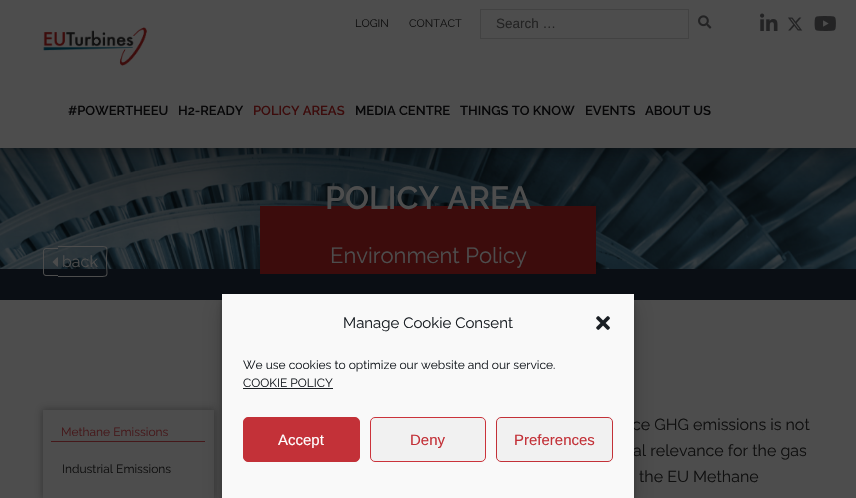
void draw(SkCanvas* c) {
SkPaint p;
p.setAntiAlias(true);
auto F=[&](const char* family, int weight, float size, bool italic = false){SkFontStyle style(weight, SkFontStyle::kNormal_Width,italic ? SkFontStyle::kItalic_Slant : SkFontStyle::kUpright_Slant);SkFont result(fontMgr->matchFamilyStyle(family, style), size);result.setSubpixel(true);return result;};
auto T=[&](const char* s, float x, float y, const SkFont& font){c->drawString(s, x, y, font, p);};
auto R=[&](float x, float y, float w, float h){c->drawRect(SkRect::MakeXYWH(x, y, w, h), p);};
auto I=[&](const char* path, float x, float y, float w, float h){auto image = SkImages::DeferredFromEncodedData(SkData::MakeFromFileName(path));c->drawImageRect(image, SkRect::MakeXYWH(x, y, w, h), SkSamplingOptions());};
auto P=[&](const char* data, bool evenOdd = false){SkPath result = *SkParsePath::FromSVGString(data);if (evenOdd) result.setFillType(SkPathFillType::kEvenOdd);return result;};
c->clear(0xff4d4d4d);
I("6.png",0,148,856,121);
p.setColor(0x59000000);
p.setMaskFilter(SkMaskFilter::MakeBlur(kNormal_SkBlurStyle, 7.5));
c->drawRect(SkRect::MakeXYWH(2,5,852,144),p);
p.setMaskFilter(nullptr);
p.setColor(0xff4d4d4d);
R(0,0,856,148);
auto f1 = F("Raleway",400,11);
p.setColor(0xff0f0f0f);
T("LOGIN",355,27,f1);
T("CONTACT",409,27,f1);
p.setStroke(true);
p.setStrokeWidth(1);
p.setColor(0xff424242);
c->drawRect(SkRect::MakeXYWH(480.5,9.5,208,29),p);
auto f2 = F("Liberation Sans",400,13.5);
p.setStroke(false);
p.setColor(0xff232323);
T("Search …",496,28,f2);
I("1.png",698,15,14,14);
I("2.png",760,13,18,18);
I("3.png",788,17,15,14);
I("4.png",814,16,22,15);
I("5.png",43,27,104,39);
auto f3 = F("Raleway",600,13);
p.setColor(0xff070708);
T("#POWERTHEEU",68,115,f3);
T("H2-READY",178,115,f3);
p.setColor(0xff3c0c0c);
T("POLICY AREAS",253,115,f3);
p.setColor(0xff070708);
T("MEDIA CENTRE",355,115,f3);
T("THINGS TO KNOW",460,115,f3);
T("EVENTS",585,115,f3);
T("ABOUT US",645,115,f3);
p.setColor(0xff0a0e14);
R(0,269,856,31);
p.setColor(0xff4d4d4d);
c->drawPath(P("M46 248h12v28h-12c-1.5 0-3-1.5-3-3v-22c0-1.5 1.5-3 3-3zm0 1h12v26h-12c-1 0-2-1-2-2v-22c0-1 1-2 2-2z",true),p);
c->drawPath(P("M58 246h38c15 0 11 0 11 16c0 15 4 15-11 15h-38zm0 1h38c14 0 10-1 10 15c0 15 4 14-10 14h-38z",true),p);
I("7.png",52,257,6,10);
auto f4 = F("Raleway",400,16);
T("back",62,267,f4);
p.setColor(0xff3c0c0c);
R(260,206,336,68);
auto f5 = F("Raleway",600,32);
p.setColor(0xff4d4d4d);
T("POLICY AREA",325,209,f5);
auto f6 = F("Raleway",400,22);
T("Environment Policy",330,263,f6);
c->save();
c->clipPath(P("M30 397h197v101h-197zm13 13h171v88h-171z",true),true);
p.setColor(0x47000000);
p.setMaskFilter(SkMaskFilter::MakeBlur(kNormal_SkBlurStyle, 3.5));
c->drawRect(SkRect::MakeXYWH(42,409,173,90),p);
p.setMaskFilter(nullptr);
c->restore();
p.setColor(0xff45181a);
R(51,441,154,1);
auto f7 = F("Raleway",400,12);
T("Methane Emissions",61,436,f7);
p.setColor(0xff0f0f0f);
T("Industrial Emissions",62,473,f7);
T("ce GHG emissions is not",632,430,f4);
T("al relevance for the gas",633,456,f4);
T("the EU Methane",639,482,f4);
p.setColor(0x3b000000);
p.setMaskFilter(SkMaskFilter::MakeBlur(kNormal_SkBlurStyle, 3));
c->drawRect(SkRect::MakeXYWH(222,300,412,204),p);
p.setMaskFilter(nullptr);
p.setColor(0x30000000);
p.setMaskFilter(SkMaskFilter::MakeBlur(kNormal_SkBlurStyle, 10));
c->drawRect(SkRect::MakeXYWH(222,304,412,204),p);
p.setMaskFilter(nullptr);
p.setColor(0xfff9f9f9);
R(222,294,412,204);
auto f8 = F("Raleway",400,15);
p.setColor(0xff191e23);
T("Manage Cookie Consent",343,328,f8);
I("8.png",596,316,14,14);
T("We use cookies to optimize our website and our service.",243,369,f7);
T("COOKIE POLICY",243,387,f7);
R(243,388,90,1);
p.setColor(0xffc33138);
c->drawRoundRect(SkRect::MakeXYWH(243.5,417.5,116,44),4.5,4.5,p);
p.setStroke(true);
c->drawRoundRect(SkRect::MakeXYWH(243.5,417.5,116,44),4.5,4.5,p);
auto f9 = F("Liberation Sans",400,15);
p.setStroke(false);
p.setColor(0xffffffff);
T("Accept",278,445,f9);
p.setColor(0xfff1f1f1);
c->drawRoundRect(SkRect::MakeXYWH(370.5,417.5,115,44),4.5,4.5,p);
p.setStroke(true);
p.setColor(0xffcb333b);
c->drawRoundRect(SkRect::MakeXYWH(370.5,417.5,115,44),4.5,4.5,p);
p.setStroke(false);
p.setColor(0xffc33138);
T("Deny",410,445,f9);
p.setColor(0xfff1f1f1);
c->drawRoundRect(SkRect::MakeXYWH(496.5,417.5,116,44),4.5,4.5,p);
p.setStroke(true);
p.setColor(0xffc33138);
c->drawRoundRect(SkRect::MakeXYWH(496.5,417.5,116,44),4.5,4.5,p);
p.setStroke(false);
T("Preferences",514,445,f9);
}
